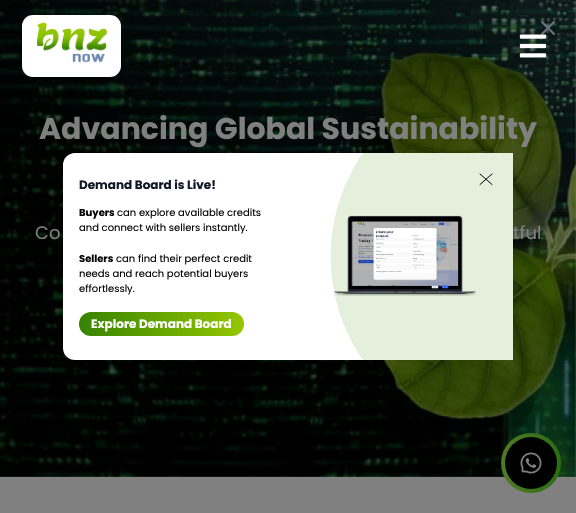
void draw(SkCanvas* c) {
SkPaint p;
p.setAntiAlias(true);
auto F=[&](const char* family, int weight, float size, bool italic = false){SkFontStyle style(weight, SkFontStyle::kNormal_Width,italic ? SkFontStyle::kItalic_Slant : SkFontStyle::kUpright_Slant);SkFont result(fontMgr->matchFamilyStyle(family, style), size);result.setSubpixel(true);return result;};
auto T=[&](const char* s, float x, float y, const SkFont& font){c->drawString(s, x, y, font, p);};
auto Q=[&](float x, float y, float w, float h, float radius){c->drawRoundRect(SkRect::MakeXYWH(x, y, w, h), radius, radius, p);};
auto I=[&](const char* path, float x, float y, float w, float h){auto image = SkImages::DeferredFromEncodedData(SkData::MakeFromFileName(path));c->drawImageRect(image, SkRect::MakeXYWH(x, y, w, h), SkSamplingOptions());};
auto P=[&](const char* data, bool evenOdd = false){SkPath result = *SkParsePath::FromSVGString(data);if (evenOdd) result.setFillType(SkPathFillType::kEvenOdd);return result;};
c->clear(0xff808080);
I("3.png",0,0,576,477);
p.setColor(0xffffffff);
Q(22,15,99,62,11);
I("1.png",37,22,70,41);
p.setStroke(true);
p.setStrokeWidth(2);
p.setStrokeCap(SkPaint::kRound_Cap);
p.setStrokeJoin(SkPaint::kRound_Join);
p.setColor(0xff6b7280);
c->drawPath(P("M542 34l12-12m-12 0l12 12"),p);
I("2.png",519,34,28,24);
auto f1 = F("Poppins",700,30);
p.setStroke(false);
p.setColor(0xff808080);
T("Advancing Global Sustainability",39,139,f1);
auto f2 = F("Poppins",400,18);
T("Co",35,239,f2);
T("tful",513,239,f2);
p.setColor(0xffffffff);
Q(63,153,450,207,12);
auto f3 = F("Poppins",700,12);
p.setColor(0xff111827);
T("Demand Board is Live!",79,189,f3);
auto f4 = F("Poppins",700,10);
p.setColor(0xff000000);
T("Buyers",79,216,f4);
auto f5 = F("Poppins",400,10);
T("can explore available credits",117,216,f5);
T("and connect with sellers instantly.",79,231,f5);
T("Sellers",79,262,f4);
T("can find their perfect credit",116,262,f5);
T("needs and reach potential buyers",79,277,f5);
T("effortlessly.",79,292,f5);
{
const SkColor colors[] = {0xff378300,0xff95c701};
const float stops[] = {0,1};
const SkPoint ends[] = {{79,324}, {244,324}};
p.setShader(SkGradientShader::MakeLinear(ends, colors, stops, 2, SkTileMode::kClamp));
p.setAlpha(255);
}
Q(79,312,165,24,12);
p.setShader(nullptr);
p.setColor(0xffffffff);
T("Explore Demand Board",91,328,f3);
p.setColor(0xffe5f0dc);
c->drawPath(P("M363 360c-43-62-43-145 0-207h150v207z"),p);
I("4.png",334,215,142,81);
p.setStroke(true);
p.setStrokeWidth(1);
p.setStrokeJoin(SkPaint::kMiter_Join);
p.setColor(0xff000000);
c->drawPath(P("M480 174l12 10.5m0-10.5l-12 10.5"),p);
p.setStroke(false);
{
const SkColor colors[] = {0xff527926,0xff296e12};
const float stops[] = {0,1};
const SkPoint ends[] = {{501,463}, {561,463}};
p.setShader(SkGradientShader::MakeLinear(ends, colors, stops, 2, SkTileMode::kClamp));
p.setAlpha(255);
}
c->drawCircle(531,463,30,p);
p.setShader(nullptr);
p.setColor(0xff000000);
c->drawCircle(531,463,26,p);
I("5.png",520,452,22,22);
}
